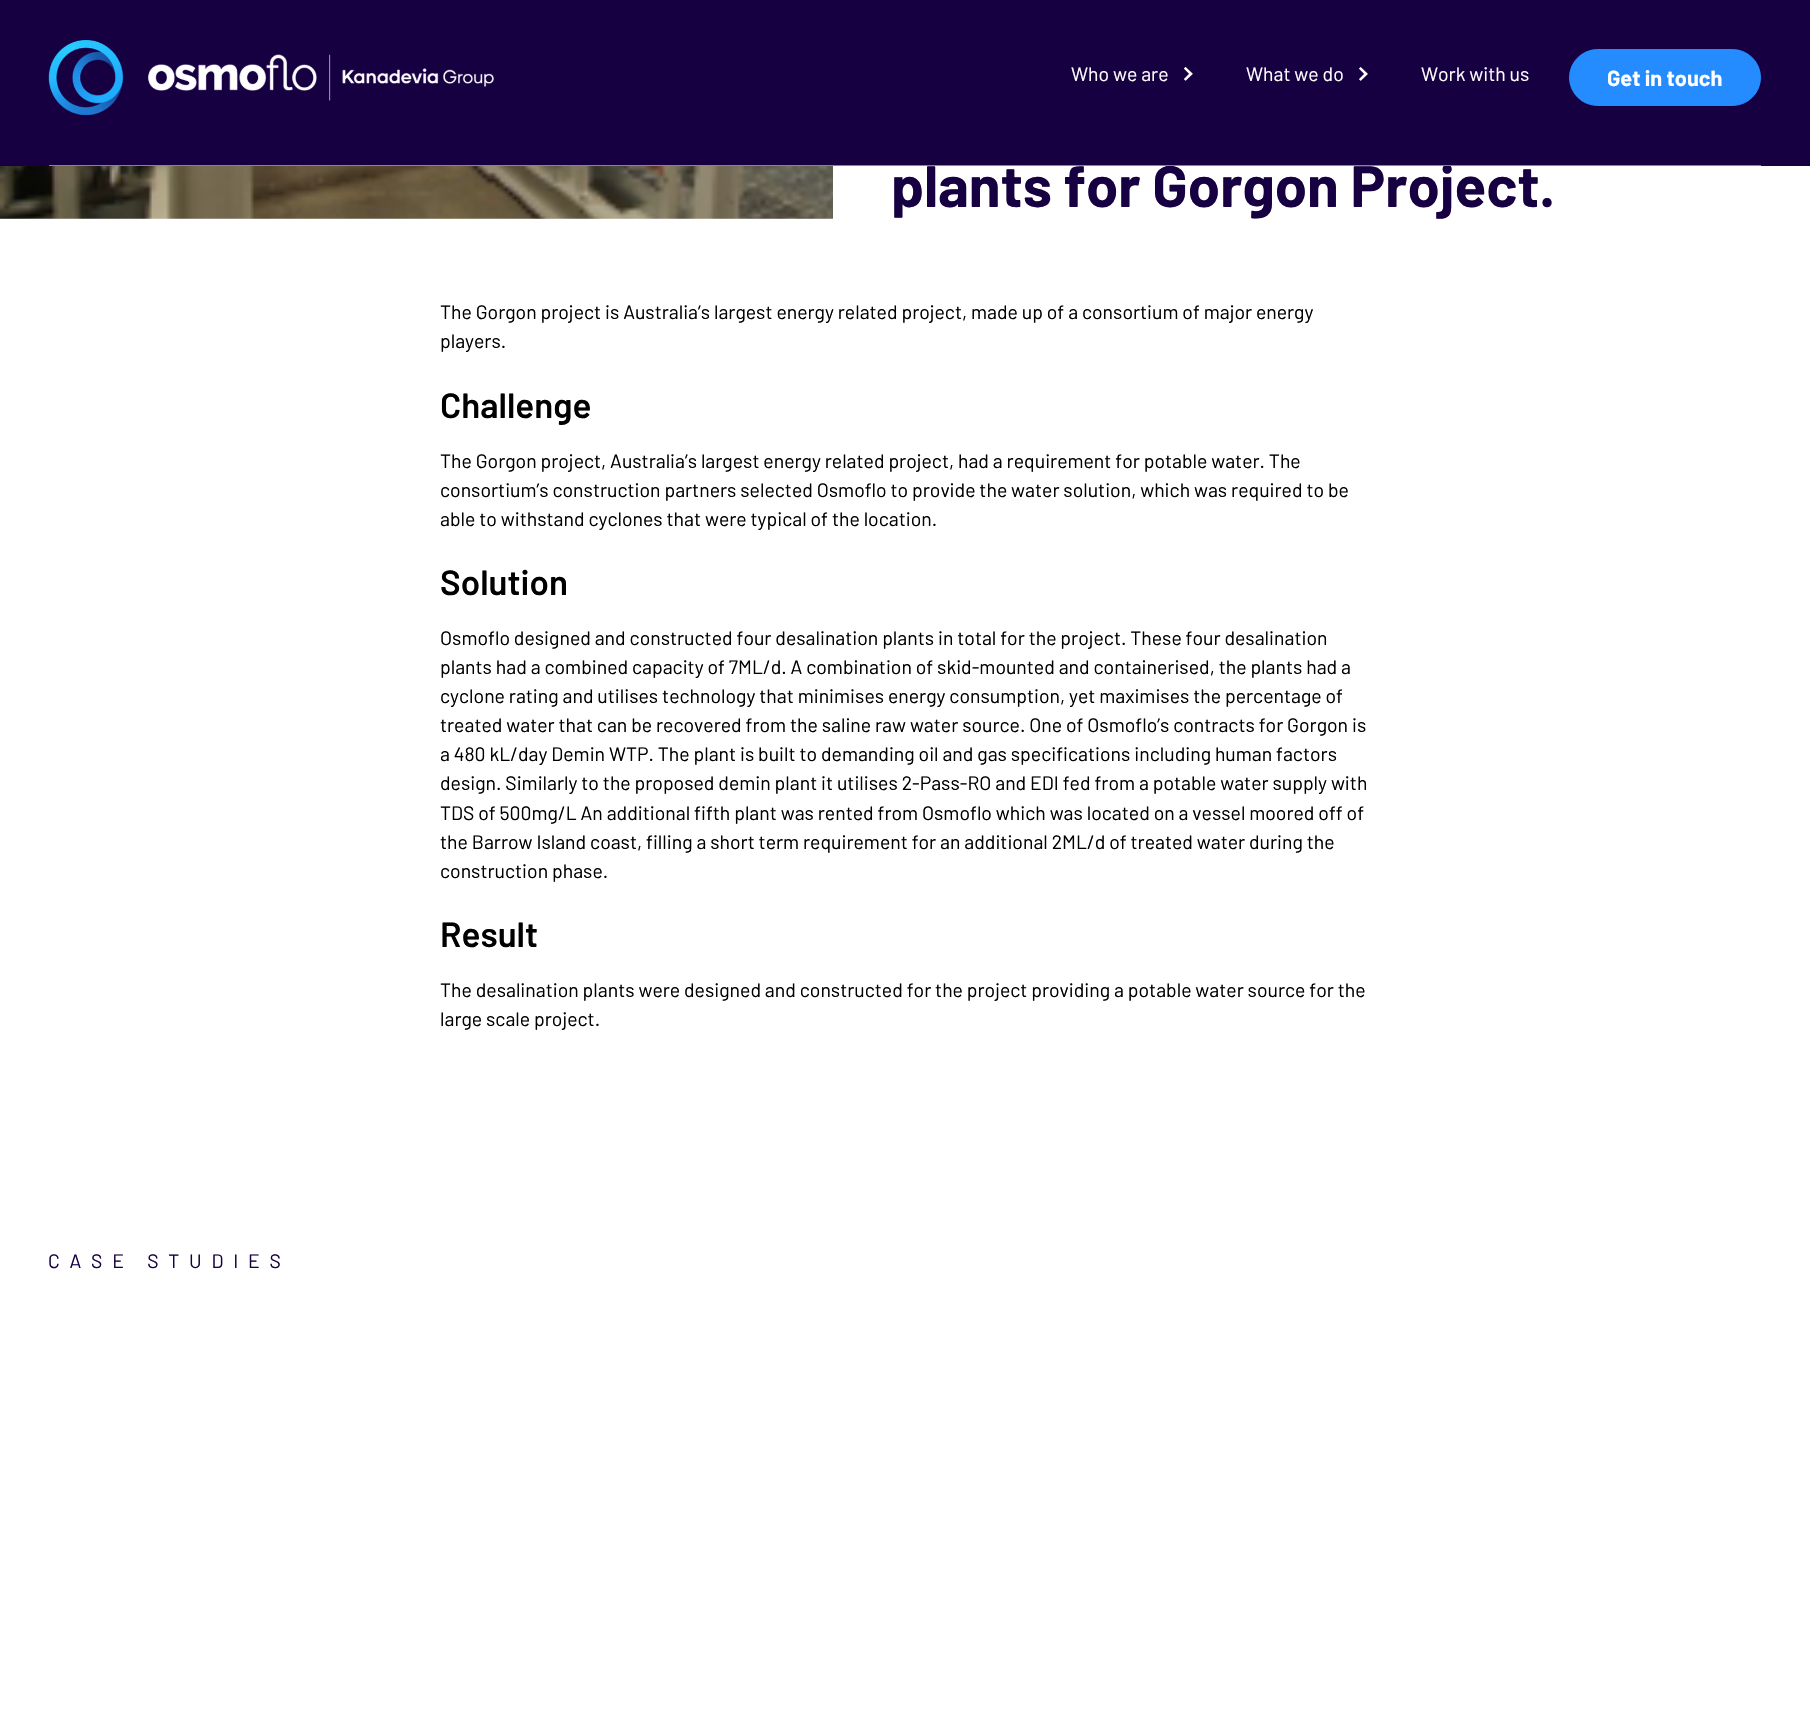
void draw(SkCanvas* c) {
SkPaint p;
p.setAntiAlias(true);
auto F=[&](const char* family, int weight, float size, bool italic = false){SkFontStyle style(weight, SkFontStyle::kNormal_Width,italic ? SkFontStyle::kItalic_Slant : SkFontStyle::kUpright_Slant);SkFont result(fontMgr->matchFamilyStyle(family, style), size);result.setSubpixel(true);return result;};
auto T=[&](const char* s, float x, float y, const SkFont& font){c->drawString(s, x, y, font, p);};
auto L=[&](const char* s, float x, float y, const SkFont& font, const SkPaint& ink, float letter, float word){std::vector<SkGlyphID> glyphs(font.countText(s, strlen(s), SkTextEncoding::kUTF8));std::vector<float> xs(glyphs.size());font.textToGlyphs(s, strlen(s), SkTextEncoding::kUTF8, glyphs);font.getXPos(glyphs, xs, x);float extra = 0;for (size_t i = 0; i < glyphs.size(); i++) {xs[i] += extra;extra += letter + word * (glyphs[i] == font.unicharToGlyph(' '));}c->drawTextBlob(SkTextBlob::MakeFromPosHGlyphs(glyphs, xs, y, font), 0, 0, ink);};
auto R=[&](float x, float y, float w, float h){c->drawRect(SkRect::MakeXYWH(x, y, w, h), p);};
auto I=[&](const char* path, float x, float y, float w, float h){auto image = SkImages::DeferredFromEncodedData(SkData::MakeFromFileName(path));c->drawImageRect(image, SkRect::MakeXYWH(x, y, w, h), SkSamplingOptions());};
c->clear(0xffffffff);
p.setColor(0xff170042);
R(0,0,1810,166);
I("1.png",48,40,446,75);
auto f1 = F("Barlow",400,19.4);
p.setColor(0xffffffff);
T("Who we are",1071,81,f1);
I("2.png",1183,66,10,15);
T("What we do",1246,81,f1);
I("3.png",1359,67,9,14);
T("Work with us",1421,81,f1);
p.setColor(0xff248cff);
c->drawRoundRect(SkRect::MakeXYWH(1569.5,49.5,191,56),28,28,p);
p.setStroke(true);
p.setStrokeWidth(1);
c->drawRoundRect(SkRect::MakeXYWH(1569.5,49.5,191,56),28,28,p);
auto f2 = F("Barlow",700,21.75);
p.setStroke(false);
p.setColor(0xffffffff);
T("Get in touch",1607,86,f2);
auto f3 = F("Barlow",700,58.1);
p.setColor(0xff170042);
T("plants for Gorgon Project.",891,207,f3);
p.setColor(0xff8b80a1);
R(49,165,1712,1);
I("4.png",0,166,833,53);
p.setColor(0xff000000);
T("The Gorgon project is Australia’s largest energy related project, made up of a consortium of major energy",440,319,f1);
T("players.",440,348,f1);
auto f4 = F("Barlow",600,35);
T("Challenge",440,418,f4);
T("The Gorgon project, Australia’s largest energy related project, had a requirement for potable water. The",440,468,f1);
T("consortium’s construction partners selected Osmoflo to provide the water solution, which was required to be",440,497,f1);
T("able to withstand cyclones that were typical of the location.",440,526,f1);
T("Solution",440,595,f4);
T("Osmoflo designed and constructed four desalination plants in total for the project. These four desalination",440,645,f1);
T("plants had a combined capacity of 7ML/d. A combination of skid-mounted and containerised, the plants had a",440,674,f1);
T("cyclone rating and utilises technology that minimises energy consumption, yet maximises the percentage of",440,703,f1);
T("treated water that can be recovered from the saline raw water source. One of Osmoflo’s contracts for Gorgon is",440,732,f1);
T("a 480 kL/day Demin WTP. The plant is built to demanding oil and gas specifications including human factors",440,761,f1);
T("design. Similarly to the proposed demin plant it utilises 2-Pass-RO and EDI fed from a potable water supply with",440,790,f1);
T("TDS of 500mg/L An additional fifth plant was rented from Osmoflo which was located on a vessel moored off of",440,820,f1);
T("the Barrow Island coast, filling a short term requirement for an additional 2ML/d of treated water during the",440,849,f1);
T("construction phase.",440,878,f1);
T("Result",440,947,f4);
T("The desalination plants were designed and constructed for the project providing a potable water source for the",440,997,f1);
T("large scale project.",440,1026,f1);
p.setColor(0xff170042);
L("CASE STUDIES",48,1268,f1,p,9.75,0);
}
